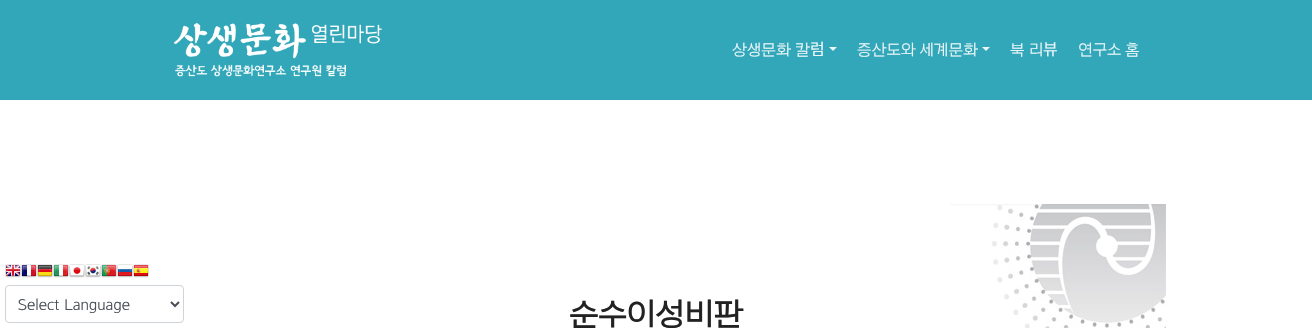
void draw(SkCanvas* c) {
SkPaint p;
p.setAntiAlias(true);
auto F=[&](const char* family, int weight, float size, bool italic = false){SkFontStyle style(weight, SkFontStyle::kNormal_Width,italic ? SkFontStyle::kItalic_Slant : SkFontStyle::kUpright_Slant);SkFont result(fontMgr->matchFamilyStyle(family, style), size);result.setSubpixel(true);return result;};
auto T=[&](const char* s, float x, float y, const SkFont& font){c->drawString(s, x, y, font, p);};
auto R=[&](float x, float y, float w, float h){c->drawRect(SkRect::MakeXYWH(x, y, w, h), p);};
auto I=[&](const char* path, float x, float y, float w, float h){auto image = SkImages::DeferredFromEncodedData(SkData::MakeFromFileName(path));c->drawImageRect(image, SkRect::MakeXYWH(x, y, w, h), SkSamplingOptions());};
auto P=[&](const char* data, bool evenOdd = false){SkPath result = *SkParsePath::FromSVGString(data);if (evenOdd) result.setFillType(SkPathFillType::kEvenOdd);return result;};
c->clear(0xffffffff);
I("1.png",5,264,16,14);
I("2.png",21,264,16,14);
I("3.png",37,264,16,14);
I("4.png",53,264,16,14);
I("5.png",69,264,16,14);
I("6.png",85,264,16,14);
I("7.png",101,264,16,14);
I("8.png",117,264,16,14);
I("9.png",133,264,16,14);
p.setStroke(true);
p.setStrokeWidth(1);
p.setColor(0xffced4da);
c->drawRoundRect(SkRect::MakeXYWH(5.5,285.5,178,37),3.5,3.5,p);
p.setStrokeWidth(2);
p.setColor(0xff495057);
c->drawPath(P("M171 302l4 4l4-4"),p);
auto f1 = F("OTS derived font",500,16);
p.setStroke(false);
T("Select",18,310,f1);
T("Language",64,310,f1);
p.setColor(0xff32a7b9);
R(0,0,1312,100);
I("10.png",174,23,209,54);
p.setColor(0xffebf6f8);
T("상생문화",732,55,f1);
T("칼",795,55,f1);
auto f2 = F("Noto Sans KR",100,16);
T("럼",810,55,f2);
c->drawPath(P("M829 47h8l-4 4z"),p);
T("증산도와",857,55,f1);
T("세계문화",920,55,f1);
c->drawPath(P("M982 47h8l-4 4z"),p);
T("북",1010,55,f1);
T("리",1029,55,f1);
T("뷰",1043,55,f2);
T("연구소",1078,55,f1);
T("홈",1125,55,f1);
I("11.png",950,204,216,124);
auto f3 = F("OTS derived font",700,32);
p.setColor(0xff222222);
T("순수이성비판",569,325,f3);
}
